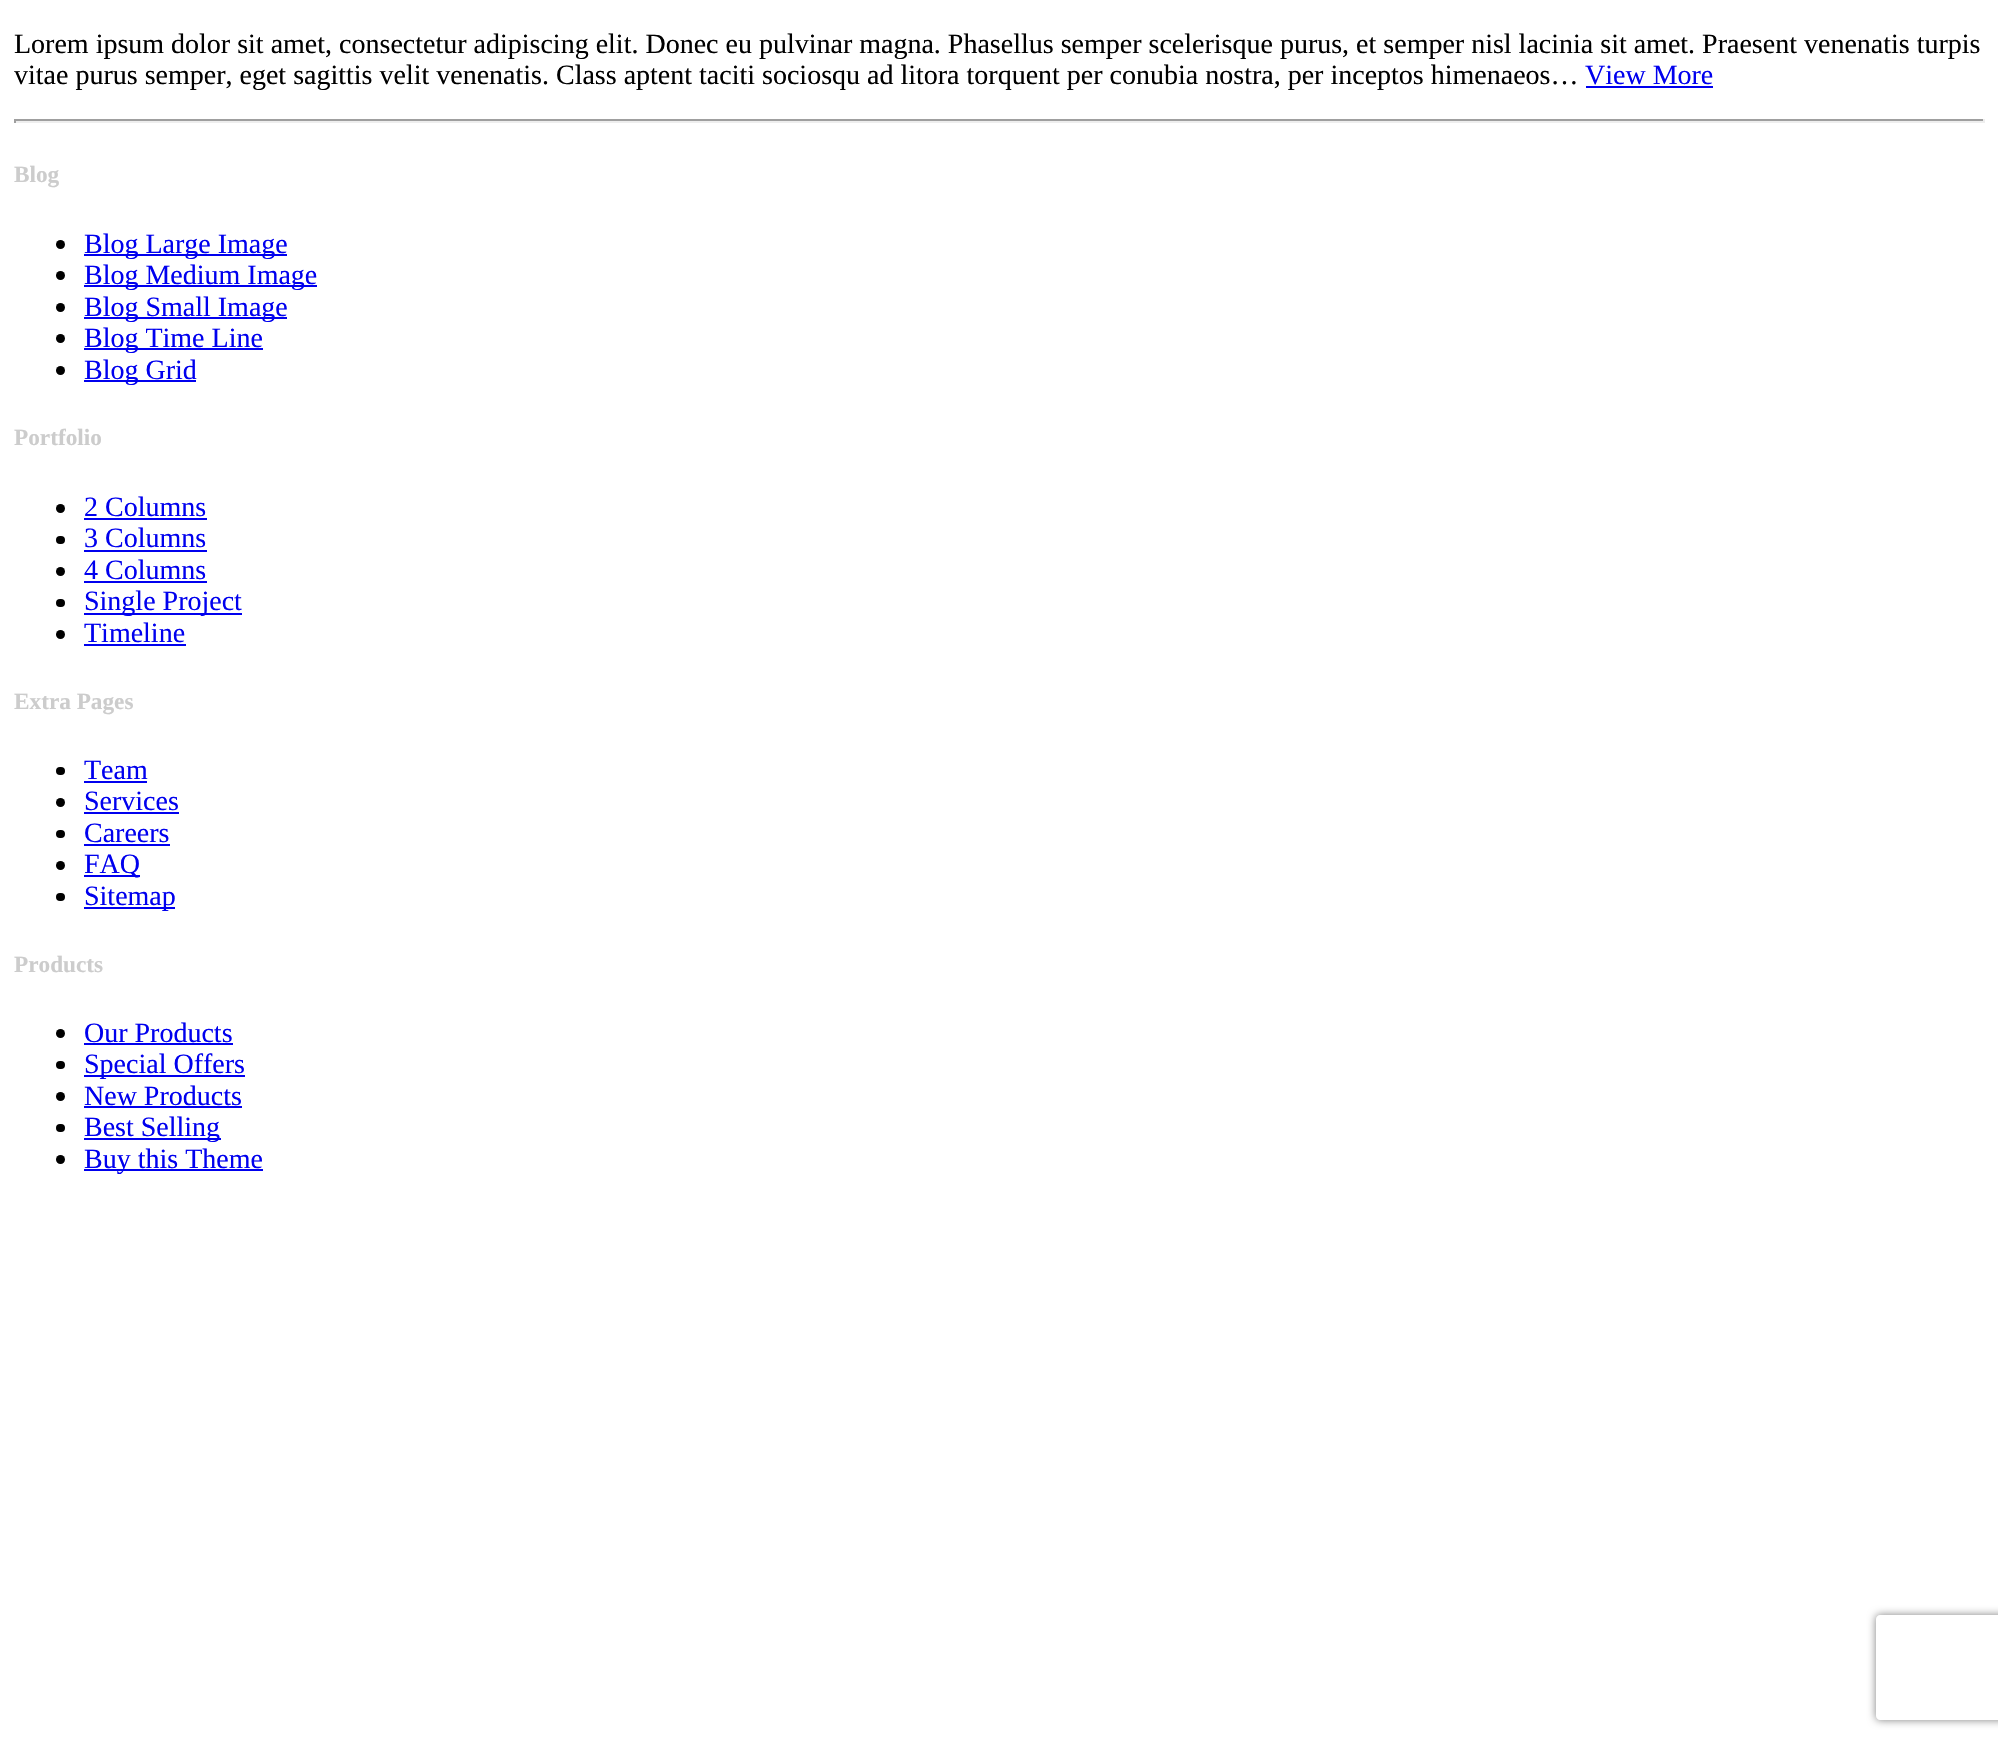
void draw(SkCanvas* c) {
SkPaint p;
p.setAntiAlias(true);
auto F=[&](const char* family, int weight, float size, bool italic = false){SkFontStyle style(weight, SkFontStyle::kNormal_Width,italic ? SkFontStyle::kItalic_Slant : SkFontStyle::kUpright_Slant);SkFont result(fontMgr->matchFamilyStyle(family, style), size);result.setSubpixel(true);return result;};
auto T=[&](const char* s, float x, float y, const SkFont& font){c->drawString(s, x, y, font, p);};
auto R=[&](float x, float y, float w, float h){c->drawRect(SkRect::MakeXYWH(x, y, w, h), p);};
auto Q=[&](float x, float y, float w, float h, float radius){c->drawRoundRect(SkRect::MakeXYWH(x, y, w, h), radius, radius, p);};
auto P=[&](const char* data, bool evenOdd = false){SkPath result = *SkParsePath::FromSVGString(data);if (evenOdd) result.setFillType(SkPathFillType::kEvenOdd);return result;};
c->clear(0xffffffff);
auto f1 = F("Liberation Serif",400,28);
p.setColor(0xff000000);
T("Lorem ipsum dolor sit amet, consectetur adipiscing elit. Donec eu pulvinar magna. Phasellus semper scelerisque purus, et semper nisl lacinia sit amet. Praesent venenatis turpis",14,53,f1);
T("vitae purus semper, eget sagittis velit venenatis. Class aptent taciti sociosqu ad litora torquent per conubia nostra, per inceptos himenaeos…",14,84,f1);
p.setColor(0xff0000ee);
T("View More",1585,84,f1);
R(1586,86,127,2);
p.setColor(0xff9f9f9f);
R(14,119,1971,2);
p.setColor(0xffeeeeee);
R(1983,119,2,4);
R(14,121,1971,2);
p.setColor(0xff9f9f9f);
R(14,119,2,4);
auto f2 = F("Liberation Serif",700,23.25);
p.setColor(0xffcccccc);
T("Blog",14,182,f2);
p.setColor(0xff000000);
c->drawCircle(60.5,244.5,4.5,p);
p.setColor(0xff0000ee);
R(84,254,203,2);
T("Blog Large Image",84,253,f1);
p.setColor(0xff000000);
c->drawCircle(60.5,275.5,4.5,p);
p.setColor(0xff0000ee);
R(84,285,233,2);
T("Blog Medium Image",84,284,f1);
p.setColor(0xff000000);
c->drawCircle(60.5,307.5,4.5,p);
p.setColor(0xff0000ee);
R(84,317,203,2);
T("Blog Small Image",84,316,f1);
p.setColor(0xff000000);
c->drawCircle(60.5,338.5,4.5,p);
p.setColor(0xff0000ee);
R(84,348,179,2);
T("Blog Time Line",84,347,f1);
p.setColor(0xff000000);
c->drawCircle(60.5,370.5,4.5,p);
p.setColor(0xff0000ee);
R(84,380,112,2);
T("Blog Grid",84,379,f1);
p.setColor(0xffcccccc);
T("Portfolio",14,445,f2);
p.setColor(0xff000000);
c->drawCircle(60.5,508.5,4.5,p);
p.setColor(0xff0000ee);
T("2 Columns",84,516,f1);
R(84,518,123,2);
p.setColor(0xff000000);
Q(56,536,9,8,4);
p.setColor(0xff0000ee);
T("3 Columns",84,547,f1);
R(84,550,123,2);
p.setColor(0xff000000);
c->drawCircle(60.5,571.5,4.5,p);
p.setColor(0xff0000ee);
T("4 Columns",84,579,f1);
R(84,581,123,2);
p.setColor(0xff000000);
Q(56,599,9,8,4);
p.setColor(0xff0000ee);
R(84,613,158,2);
T("Single Project",84,610,f1);
p.setColor(0xff000000);
c->drawCircle(60.5,634.5,4.5,p);
p.setColor(0xff0000ee);
T("Timeline",84,642,f1);
R(84,644,102,2);
p.setColor(0xffcccccc);
T("Extra Pages",14,709,f2);
p.setColor(0xff000000);
Q(56,767,9,8,4);
p.setColor(0xff0000ee);
T("Team",84,779,f1);
R(84,781,63,2);
p.setColor(0xff000000);
c->drawCircle(60.5,802.5,4.5,p);
p.setColor(0xff0000ee);
T("Services",84,810,f1);
R(84,812,95,2);
p.setColor(0xff000000);
Q(56,830,9,8,4);
p.setColor(0xff0000ee);
T("Careers",84,842,f1);
R(84,844,86,2);
p.setColor(0xff000000);
c->drawCircle(60.5,865.5,4.5,p);
p.setColor(0xff0000ee);
R(84,875,56,2);
T("FAQ",84,873,f1);
p.setColor(0xff000000);
Q(56,893,9,8,4);
p.setColor(0xff0000ee);
R(84,907,91,2);
T("Sitemap",84,905,f1);
p.setColor(0xffcccccc);
T("Products",14,972,f2);
p.setColor(0xff000000);
c->drawCircle(60.5,1033.5,4.5,p);
p.setColor(0xff0000ee);
T("Our Products",84,1042,f1);
R(84,1043,149,2);
p.setColor(0xff000000);
Q(56,1061,9,8,4);
p.setColor(0xff0000ee);
R(84,1075,161,2);
T("Special Offers",84,1073,f1);
p.setColor(0xff000000);
c->drawCircle(60.5,1096.5,4.5,p);
p.setColor(0xff0000ee);
T("New Products",84,1105,f1);
R(84,1106,158,2);
p.setColor(0xff000000);
Q(56,1124,9,8,4);
p.setColor(0xff0000ee);
R(84,1138,137,2);
T("Best Selling",84,1136,f1);
p.setColor(0xff000000);
c->drawCircle(60.5,1159.5,4.5,p);
p.setColor(0xff0000ee);
R(84,1169,179,2);
T("Buy this Theme",84,1168,f1);
c->save();
c->clipPath(P("M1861 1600h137v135h-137zm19 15h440c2 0 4 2 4 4v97c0 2-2 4-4 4h-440c-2 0-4-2-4-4v-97c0-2 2-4 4-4z",true),true);
p.setColor(0xff808080);
p.setMaskFilter(SkMaskFilter::MakeBlur(kNormal_SkBlurStyle, 4.5));
c->drawRoundRect(SkRect::MakeXYWH(1876,1615,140,105),4,4,p);
p.setMaskFilter(nullptr);
c->restore();
}
